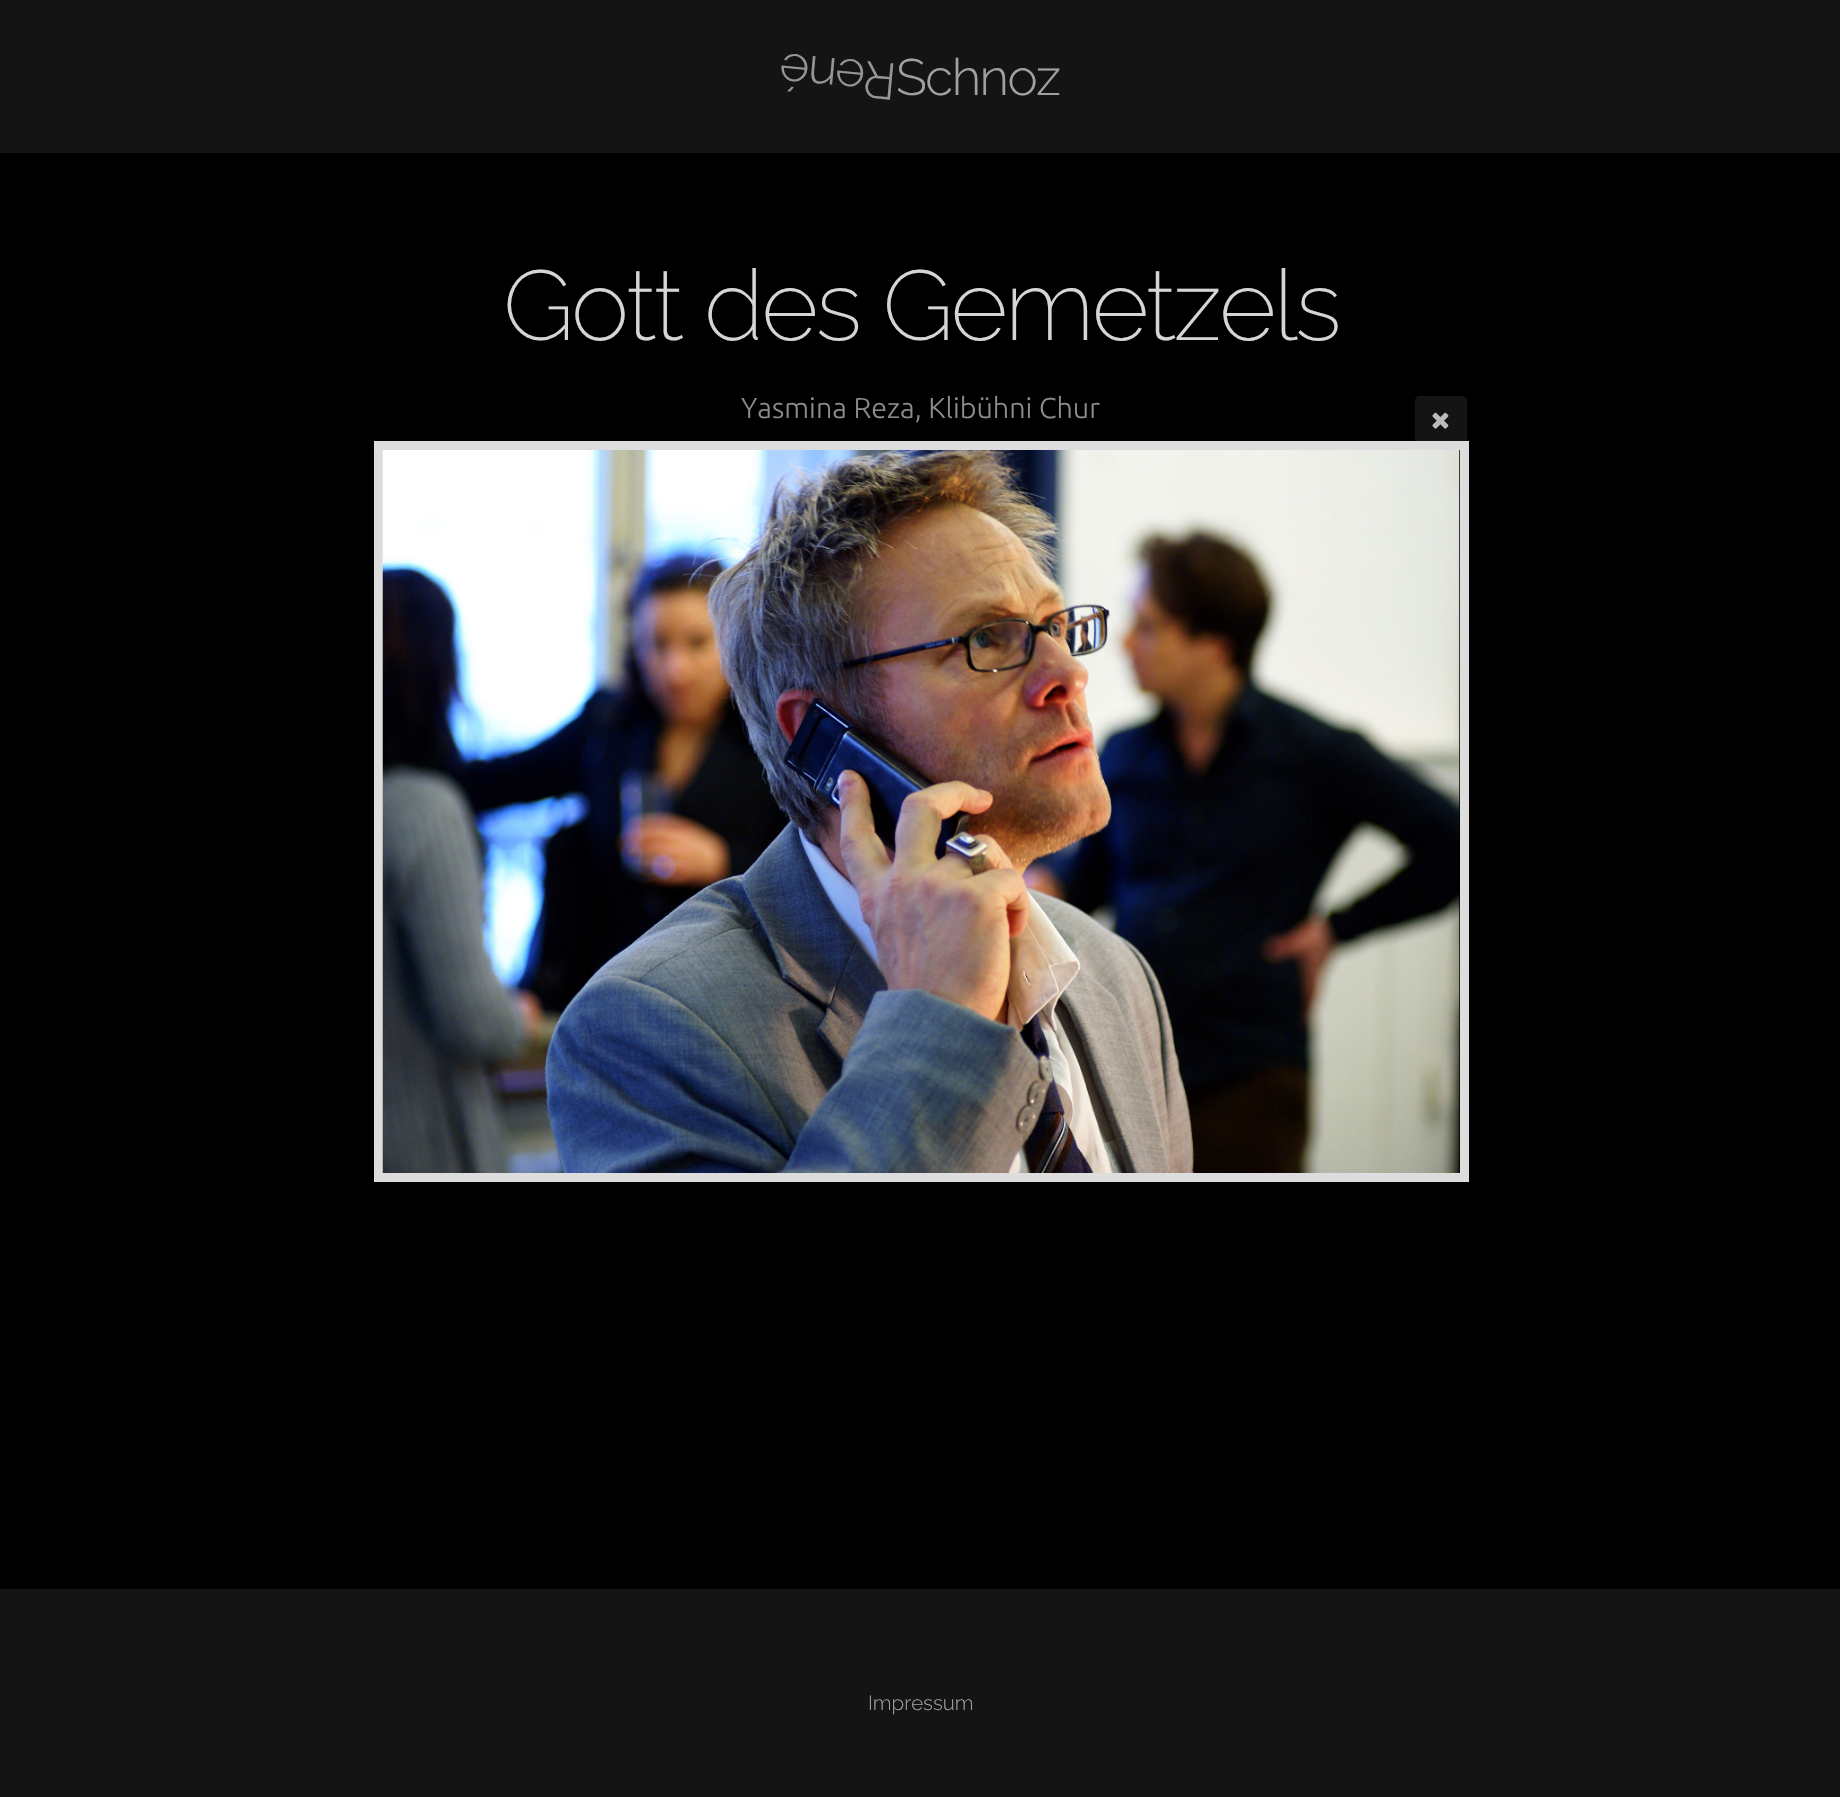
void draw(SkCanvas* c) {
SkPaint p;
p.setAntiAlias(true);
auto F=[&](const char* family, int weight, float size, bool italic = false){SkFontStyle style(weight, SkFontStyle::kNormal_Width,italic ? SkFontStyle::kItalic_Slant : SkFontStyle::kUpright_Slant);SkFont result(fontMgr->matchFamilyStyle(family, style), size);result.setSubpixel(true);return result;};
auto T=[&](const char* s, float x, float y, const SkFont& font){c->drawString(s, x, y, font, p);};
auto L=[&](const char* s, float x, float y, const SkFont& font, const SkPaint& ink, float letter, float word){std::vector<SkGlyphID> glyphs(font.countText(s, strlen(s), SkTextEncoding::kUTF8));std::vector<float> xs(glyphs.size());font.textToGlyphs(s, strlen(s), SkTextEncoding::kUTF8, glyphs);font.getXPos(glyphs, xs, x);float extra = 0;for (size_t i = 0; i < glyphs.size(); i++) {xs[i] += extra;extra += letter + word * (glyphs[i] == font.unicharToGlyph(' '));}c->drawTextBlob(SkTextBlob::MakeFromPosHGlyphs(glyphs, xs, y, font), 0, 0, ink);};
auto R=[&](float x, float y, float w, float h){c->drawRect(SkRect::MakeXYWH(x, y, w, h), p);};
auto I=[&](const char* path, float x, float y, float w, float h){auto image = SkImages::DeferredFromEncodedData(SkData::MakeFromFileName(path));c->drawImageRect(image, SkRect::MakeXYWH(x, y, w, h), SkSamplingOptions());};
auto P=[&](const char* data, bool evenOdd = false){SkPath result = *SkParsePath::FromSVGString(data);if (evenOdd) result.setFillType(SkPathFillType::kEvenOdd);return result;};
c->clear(0xff000000);
p.setColor(0xff141414);
R(0,0,1840,153);
auto f1 = F("Raleway",300,51);
p.setColor(0xff959595);
c->save();
c->rotate(-174.7,898,64);
L("René",898,64,f1,p,-1.5,0);
c->restore();
p.setColor(0xffa0a0a0);
L("Schnoz",896,95,f1,p,-1.5,0);
auto f2 = F("Raleway",200,98.5);
p.setColor(0xffd5d5d5);
L("Gott des Gemetzels",503,340,f2,p,-2.75,0);
auto f3 = F("Ubuntu",300,28.75);
p.setColor(0xff8c8c8c);
T("Yasmina Reza, Klibühni Chur",741,418,f3);
p.setColor(0xff141414);
c->drawPath(P("M1420 396h42c3 0 5 2 5 5v42h-52v-42c0-3 2-5 5-5z"),p);
I("1.png",1432,412,17,17);
p.setStroke(true);
p.setStrokeWidth(9);
p.setColor(0xffdddddd);
c->drawRect(SkRect::MakeXYWH(378.5,445.5,1086,732),p);
I("2.png",382,450,1078,723);
p.setStroke(false);
p.setColor(0xff141414);
R(0,1589,1840,208);
auto f4 = F("Raleway",300,20.5);
p.setColor(0xffa0a0a0);
T("Impressum",868,1710,f4);
}
